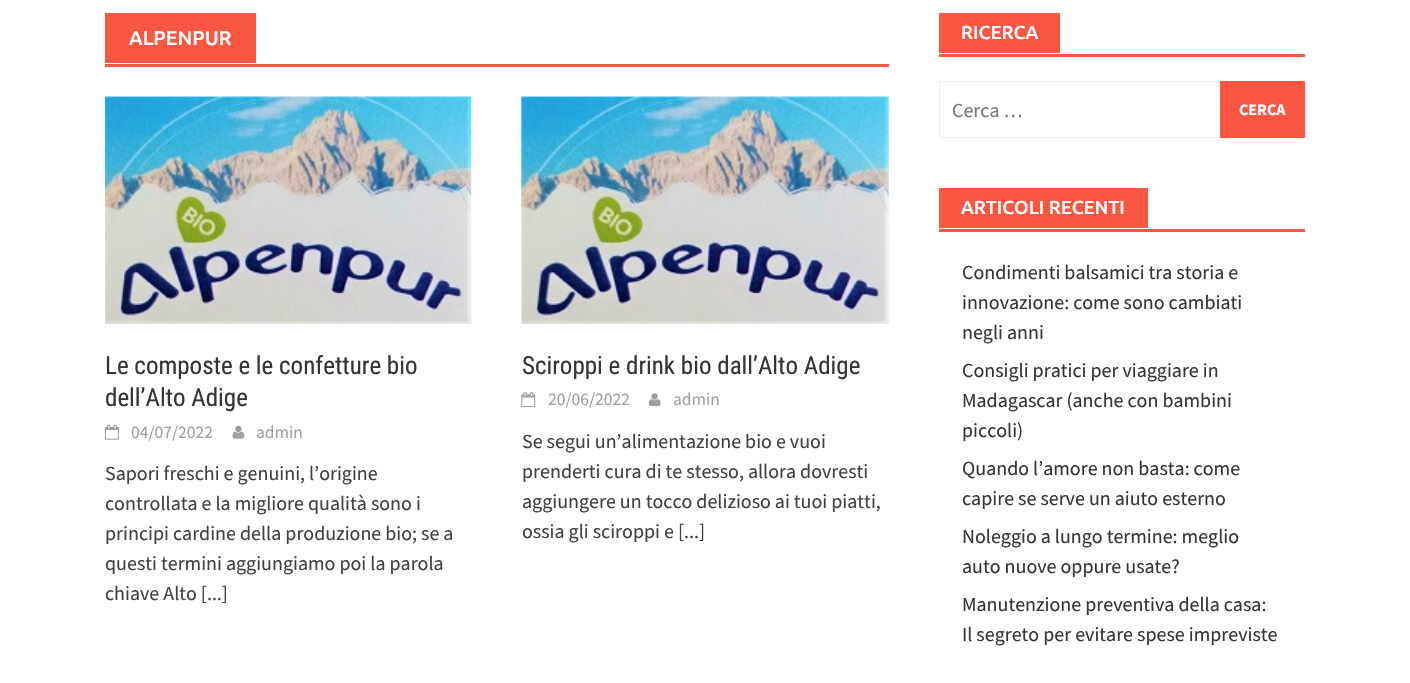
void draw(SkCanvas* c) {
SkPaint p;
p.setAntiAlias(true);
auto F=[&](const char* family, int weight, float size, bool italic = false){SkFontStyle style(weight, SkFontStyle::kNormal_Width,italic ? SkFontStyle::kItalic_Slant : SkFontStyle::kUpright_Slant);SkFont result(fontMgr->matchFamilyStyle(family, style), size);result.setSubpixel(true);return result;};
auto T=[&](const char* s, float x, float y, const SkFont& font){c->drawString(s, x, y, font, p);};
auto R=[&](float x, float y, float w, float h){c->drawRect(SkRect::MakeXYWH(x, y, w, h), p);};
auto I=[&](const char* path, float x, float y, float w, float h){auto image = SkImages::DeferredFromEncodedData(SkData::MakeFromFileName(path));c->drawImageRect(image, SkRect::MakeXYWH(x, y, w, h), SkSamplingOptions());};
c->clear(0xffffffff);
p.setColor(0xfffa5742);
R(105,64,784,3);
R(105,13,151,50);
auto f1 = F("Ubuntu",500,20);
p.setColor(0xffffffff);
T("ALPENPUR",129,45,f1);
I("1.png",105,96,367,228);
auto f2 = F("Roboto Condensed",400,25);
p.setColor(0xff353434);
T("Le composte e le confetture bio",105,374,f2);
T("dell’Alto Adige",105,406,f2);
I("2.png",105,424,14,16);
auto f3 = F("Source Sans Pro",400,17.5);
p.setColor(0xff9f9f9f);
T("04/07/2022",131,438,f3);
I("3.png",232,425,13,14);
T("admin",256,438,f3);
auto f4 = F("Source Sans Pro",400,20);
p.setColor(0xff404040);
T("Sapori freschi e genuini, l’origine",105,480,f4);
T("controllata e la migliore qualità sono i",105,510,f4);
T("principi cardine della produzione bio; se a",105,540,f4);
T("questi termini aggiungiamo poi la parola",105,570,f4);
T("chiave Alto [...]",105,600,f4);
I("4.png",521,96,368,228);
p.setColor(0xff353434);
T("Sciroppi e drink bio dall’Alto Adige",522,374,f2);
I("5.png",521,392,15,16);
p.setColor(0xff9f9f9f);
T("20/06/2022",548,405,f3);
I("6.png",648,393,13,14);
T("admin",673,405,f3);
p.setColor(0xff404040);
T("Se segui un’alimentazione bio e vuoi",522,448,f4);
T("prenderti cura di te stesso, allora dovresti",522,478,f4);
T("aggiungere un tocco delizioso ai tuoi piatti,",522,508,f4);
T("ossia gli sciroppi e [...]",522,538,f4);
p.setColor(0xfffa5742);
R(939,54,366,3);
R(939,13,121,40);
auto f5 = F("Ubuntu",500,18.75);
p.setColor(0xffffffff);
T("RICERCA",961,39,f5);
p.setStroke(true);
p.setStrokeWidth(1);
p.setColor(0xffeeeeee);
c->drawRect(SkRect::MakeXYWH(939.5,81.5,365,56),p);
p.setStroke(false);
p.setColor(0xff757575);
T("Cerca …",952,117,f4);
p.setColor(0xfffa5742);
R(1220,81,85,57);
auto f6 = F("Source Sans Pro",700,16);
p.setColor(0xffffffff);
T("CERCA",1239,115,f6);
p.setColor(0xfffa5742);
R(939,229,366,3);
R(939,188,209,40);
p.setColor(0xffffffff);
T("ARTICOLI RECENTI",961,214,f5);
p.setColor(0xff353434);
T("Condimenti balsamici tra storia e",962,279,f4);
T("innovazione: come sono cambiati",962,309,f4);
T("negli anni",962,339,f4);
T("Consigli pratici per viaggiare in",962,377,f4);
T("Madagascar (anche con bambini",962,407,f4);
T("piccoli)",962,437,f4);
T("Quando l’amore non basta: come",962,475,f4);
T("capire se serve un aiuto esterno",962,505,f4);
T("Noleggio a lungo termine: meglio",962,543,f4);
T("auto nuove oppure usate?",962,573,f4);
T("Manutenzione preventiva della casa:",962,611,f4);
T("Il segreto per evitare spese impreviste",962,641,f4);
}
